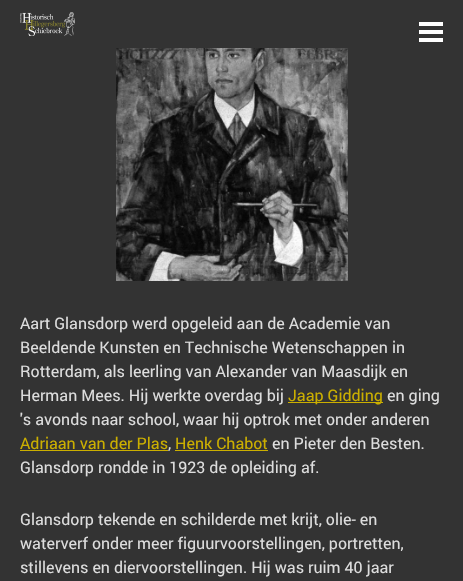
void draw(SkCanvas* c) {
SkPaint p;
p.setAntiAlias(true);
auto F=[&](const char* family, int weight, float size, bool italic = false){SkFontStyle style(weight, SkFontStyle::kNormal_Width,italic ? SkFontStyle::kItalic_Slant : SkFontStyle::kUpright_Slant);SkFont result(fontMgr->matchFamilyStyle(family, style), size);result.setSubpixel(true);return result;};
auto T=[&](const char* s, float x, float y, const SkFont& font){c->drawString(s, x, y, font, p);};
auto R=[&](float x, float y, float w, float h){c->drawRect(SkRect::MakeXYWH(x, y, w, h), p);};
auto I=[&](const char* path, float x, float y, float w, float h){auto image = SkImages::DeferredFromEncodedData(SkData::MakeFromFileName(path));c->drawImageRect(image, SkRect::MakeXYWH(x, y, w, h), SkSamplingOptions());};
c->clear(0xff333333);
I("1.png",20,12,55,24);
I("2.png",419,22,24,20);
I("3.png",116,48,232,233);
auto f1 = F("Roboto",400,16);
p.setColor(0xffdddddd);
T("Aart Glansdorp werd opgeleid aan de Academie van",20,329,f1);
T("Beeldende Kunsten en Technische Wetenschappen in",20,353,f1);
T("Rotterdam, als leerling van Alexander van Maasdijk en",20,377,f1);
T("Herman Mees. Hij werkte overdag bij",20,401,f1);
p.setColor(0xffcbaf00);
R(288,402,95,1);
T("Jaap Gidding",288,401,f1);
p.setColor(0xffdddddd);
T("en ging",387,401,f1);
T("'s avonds naar school, waar hij optrok met onder anderen",20,425,f1);
p.setColor(0xffcbaf00);
T("Adriaan van der Plas",20,449,f1);
R(20,450,148,1);
p.setColor(0xffdddddd);
T(",",168,449,f1);
p.setColor(0xffcbaf00);
T("Henk Chabot",175,449,f1);
R(175,450,93,1);
p.setColor(0xffdddddd);
T("en Pieter den Besten.",272,449,f1);
T("Glansdorp rondde in 1923 de opleiding af.",20,473,f1);
T("Glansdorp tekende en schilderde met krijt, olie- en",20,525,f1);
T("waterverf onder meer figuurvoorstellingen, portretten,",20,549,f1);
T("stillevens en diervoorstellingen. Hij was ruim 40 jaar",20,573,f1);
}
